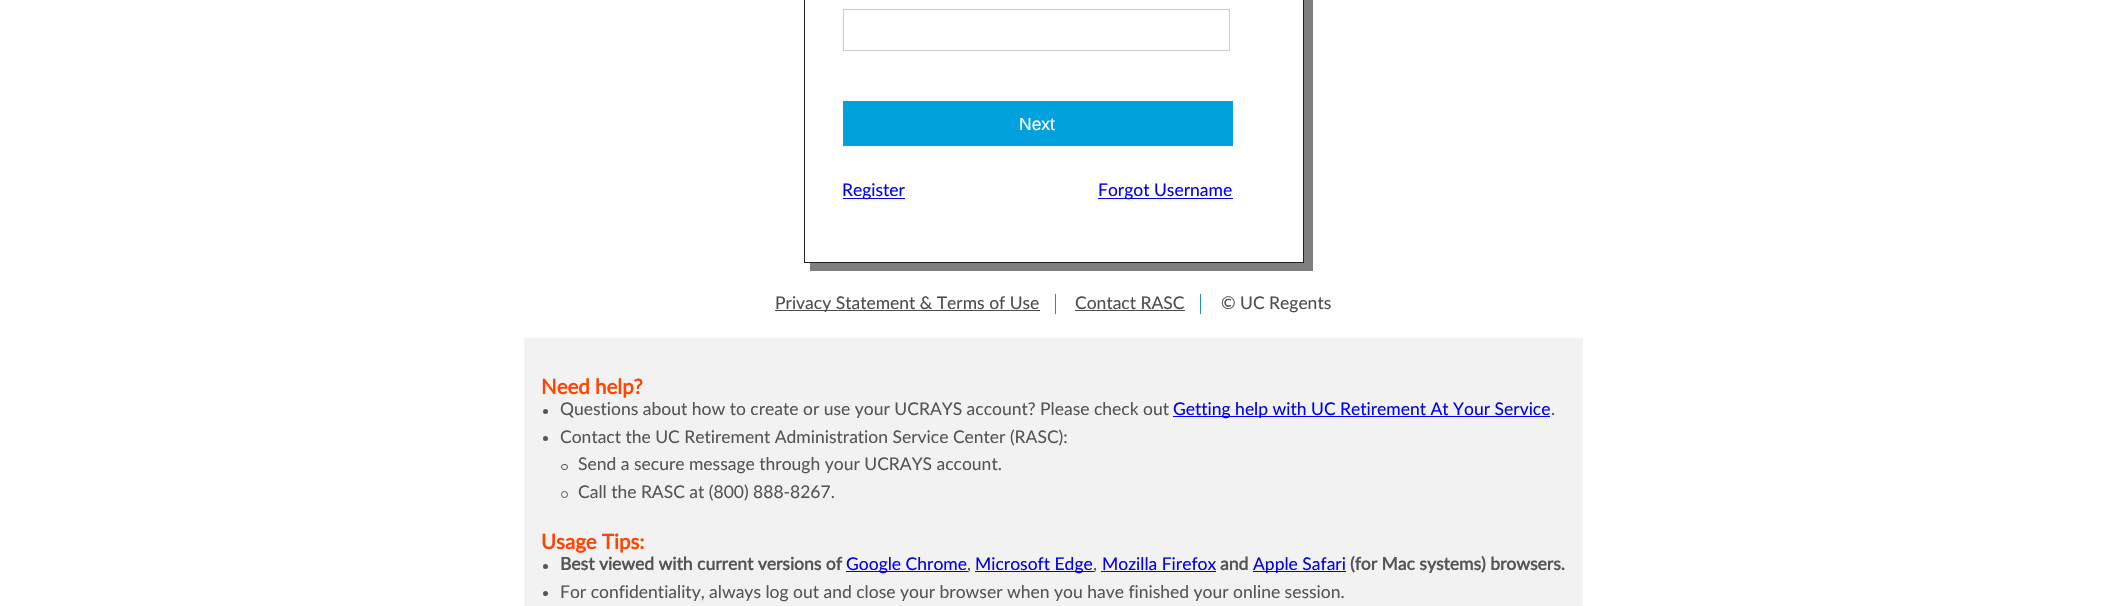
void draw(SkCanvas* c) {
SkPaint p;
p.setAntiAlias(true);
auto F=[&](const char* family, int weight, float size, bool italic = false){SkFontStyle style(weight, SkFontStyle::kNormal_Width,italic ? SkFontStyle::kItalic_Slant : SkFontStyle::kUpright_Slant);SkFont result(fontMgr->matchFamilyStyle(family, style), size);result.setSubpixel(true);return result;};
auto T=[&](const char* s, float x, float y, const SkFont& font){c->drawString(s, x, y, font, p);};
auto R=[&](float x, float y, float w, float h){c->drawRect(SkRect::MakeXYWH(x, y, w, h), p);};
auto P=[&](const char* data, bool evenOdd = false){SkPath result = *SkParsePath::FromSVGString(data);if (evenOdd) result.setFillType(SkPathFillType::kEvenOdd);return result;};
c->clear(0xffffffff);
p.setColor(0xff7f7f7f);
c->drawPath(P("M810 262v9h503v-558h-9v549z"),p);
p.setStroke(true);
p.setStrokeWidth(1);
p.setColor(0xff222222);
c->drawRect(SkRect::MakeXYWH(804.5,-.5,499,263),p);
p.setColor(0xffcccccc);
c->drawRect(SkRect::MakeXYWH(843.5,9.5,386,41),p);
p.setStroke(false);
p.setColor(0xff01a1dd);
R(843,101,390,45);
auto f1 = F("Liberation Sans",400,17.5);
p.setColor(0xffffffff);
T("Next",1019,130,f1);
p.setColor(0xff0000ee);
R(843,198,62,1);
auto f2 = F("Lato",400,17.5);
T("Register",842,196,f2);
R(1098,198,135,1);
T("Forgot Username",1098,196,f2);
p.setColor(0xff1f92b8);
R(1055,294,1,20);
p.setColor(0xff4d4d4d);
R(775,310,265,1);
T("Privacy Statement & Terms of Use",775,309,f2);
p.setColor(0xff1f92b8);
R(1200,294,1,20);
p.setColor(0xff4d4d4d);
T("Contact RASC",1075,309,f2);
R(1075,310,110,1);
T("© UC Regents",1221,309,f2);
p.setColor(0xfff2f2f2);
R(524,338,1059,268);
auto f3 = F("Lato",700,20.5);
p.setColor(0xffff4500);
T("Need help?",541,394,f3);
p.setColor(0xff555555);
c->drawCircle(545.5,411.5,2.5,p);
T("Questions about how to create or use your UCRAYS account? Please check out",560,415,f2);
p.setColor(0xff0000ee);
R(1173,416,377,1);
T("Getting help with UC Retirement At Your Service",1173,415,f2);
p.setColor(0xff555555);
T(".",1551,415,f2);
c->drawCircle(545.5,438.5,2.5,p);
T("Contact the UC Retirement Administration Service Center (RASC):",560,443,f2);
p.setStroke(true);
c->drawRoundRect(SkRect::MakeXYWH(561.5,464.5,6,5),2.5,2.5,p);
p.setStroke(false);
T("Send a secure message through your UCRAYS account.",578,470,f2);
p.setStroke(true);
c->drawCircle(564.5,494.5,3,p);
p.setStroke(false);
T("Call the RASC at (800) 888-8267.",578,498,f2);
p.setColor(0xffff4500);
T("Usage Tips:",541,549,f3);
p.setColor(0xff555555);
c->drawCircle(545.5,566.5,2.5,p);
auto f4 = F("Lato",700,17.5);
T("Best viewed with current versions of",560,570,f4);
p.setColor(0xff0000ee);
R(846,571,122,1);
T("Google Chrome",846,570,f2);
R(975,571,119,1);
T("Microsoft Edge",975,570,f2);
T("Mozilla Firefox",1102,570,f2);
R(1101,571,115,1);
p.setColor(0xff555555);
T("and",1220,570,f4);
p.setColor(0xff0000ee);
R(1253,571,93,1);
T("Apple Safari",1253,570,f2);
p.setColor(0xff555555);
T("(for Mac systems) browsers.",1350,570,f4);
T(",",967,570,f2);
T(",",1093,570,f2);
c->drawCircle(545.5,593.5,2.5,p);
T("For confidentiality, always log out and close your browser when you have finished your online session.",560,598,f2);
}
